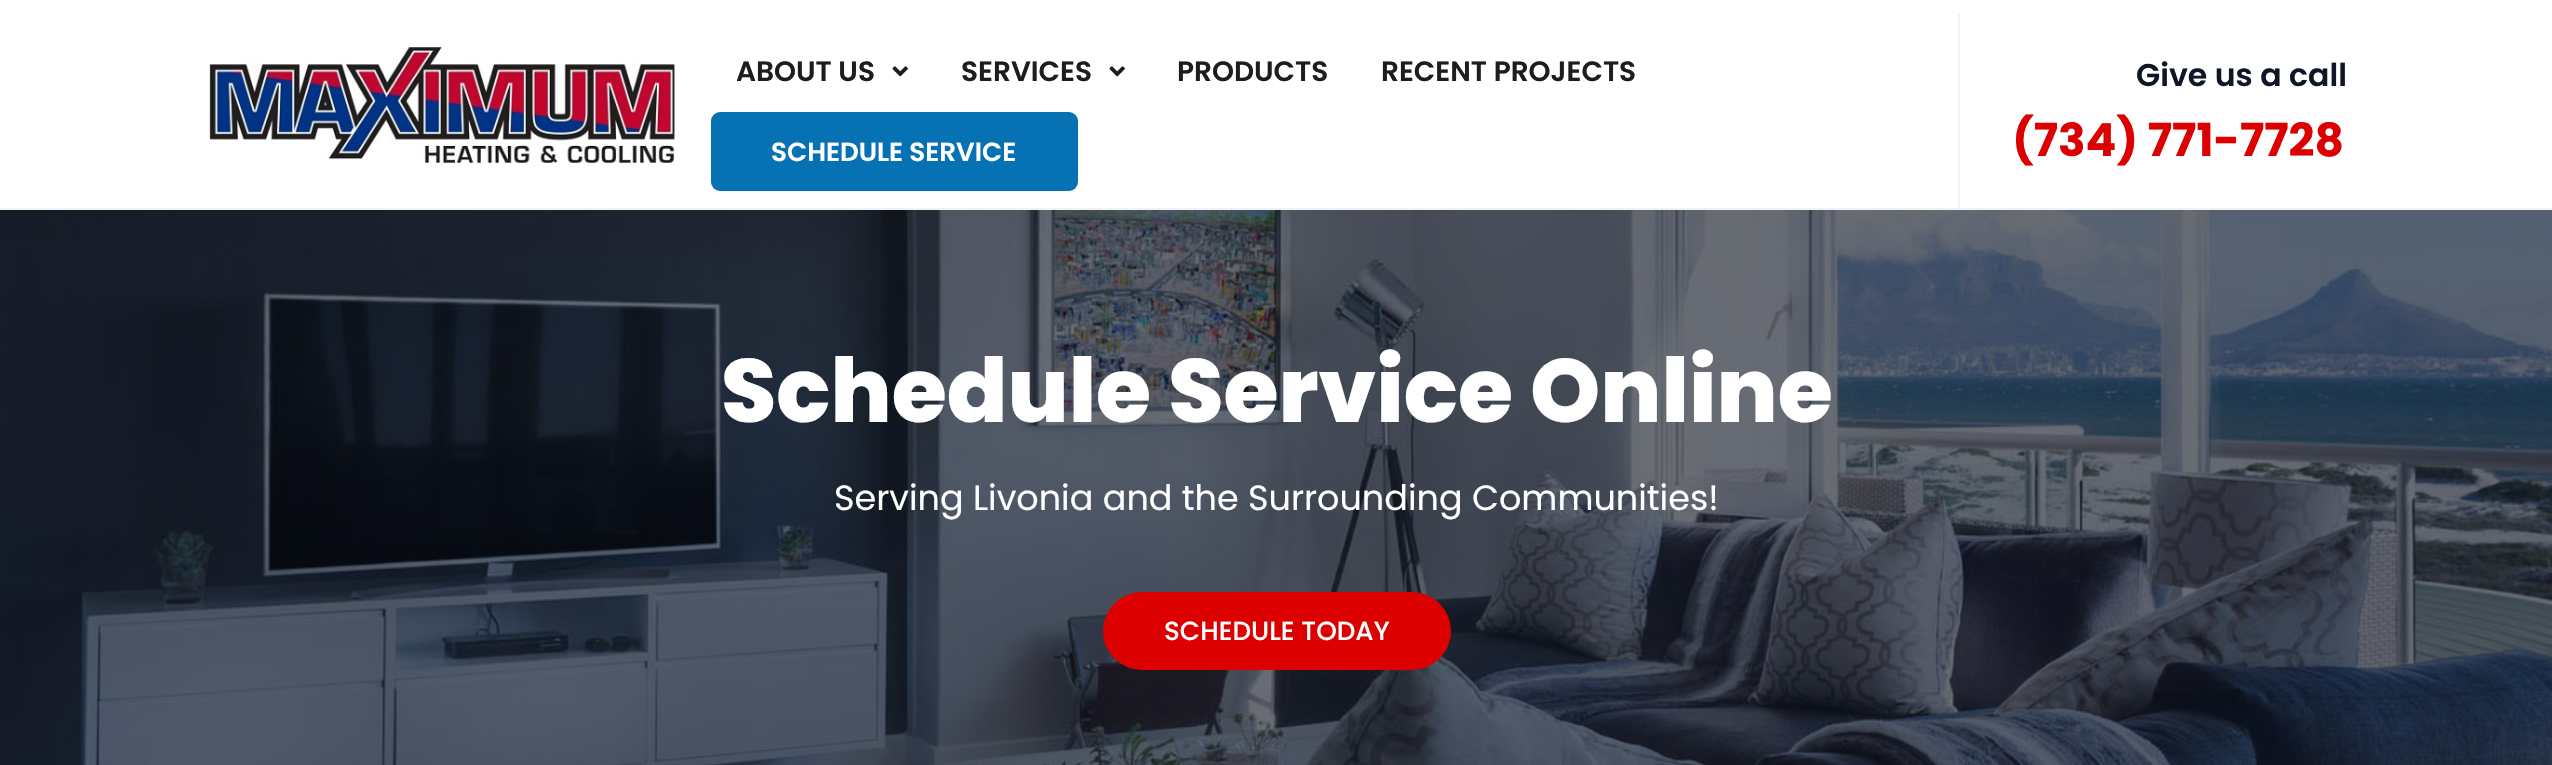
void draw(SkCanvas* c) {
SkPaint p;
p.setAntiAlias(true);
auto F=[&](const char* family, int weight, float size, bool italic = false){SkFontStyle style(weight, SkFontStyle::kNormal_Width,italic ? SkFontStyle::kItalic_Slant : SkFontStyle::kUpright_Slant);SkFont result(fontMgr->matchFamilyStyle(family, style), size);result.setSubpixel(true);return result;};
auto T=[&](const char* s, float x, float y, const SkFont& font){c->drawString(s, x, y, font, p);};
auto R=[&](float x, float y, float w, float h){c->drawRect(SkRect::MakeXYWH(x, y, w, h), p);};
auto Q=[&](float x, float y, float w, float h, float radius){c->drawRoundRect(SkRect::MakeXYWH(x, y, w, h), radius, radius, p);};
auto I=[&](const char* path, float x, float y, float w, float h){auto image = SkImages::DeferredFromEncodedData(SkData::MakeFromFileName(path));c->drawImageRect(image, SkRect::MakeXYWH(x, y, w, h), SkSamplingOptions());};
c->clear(0xffffffff);
p.setColor(0xfff2f2f2);
R(0,208,2552,2);
I("1.png",209,47,466,116);
auto f1 = F("Poppins",600,28);
p.setColor(0xff1d1d1d);
T("ABOUT US",736,81,f1);
I("2.png",892,66,16,11);
T("SERVICES",961,81,f1);
I("2.png",1109,66,16,11);
T("PRODUCTS",1177,81,f1);
T("RECENT PROJECTS",1381,81,f1);
p.setColor(0xff0671b3);
Q(711,112,367,79,9);
auto f2 = F("Poppins",600,26.25);
p.setColor(0xffffffff);
T("SCHEDULE SERVICE",771,161,f2);
p.setColor(0xfff2f2f2);
R(1958,14,2,194);
auto f3 = F("Poppins",600,31.5);
p.setColor(0xff0f1628);
T("Give us a call",2136,86,f3);
auto f4 = F("Poppins",700,45.5);
p.setColor(0xffdc0000);
T("(734) 771-7728",2012,156,f4);
I("3.png",0,210,2552,555);
auto f5 = F("Poppins",800,89.25);
p.setColor(0xffffffff);
T("Schedule Service Online",721,422,f5);
auto f6 = F("Poppins",400,35);
T("Serving Livonia and the Surrounding Communities!",834,510,f6);
p.setColor(0xffdc0000);
Q(1103,592,348,78,39);
auto f7 = F("Poppins",500,26.25);
p.setColor(0xffffffff);
T("SCHEDULE TODAY",1164,640,f7);
}
